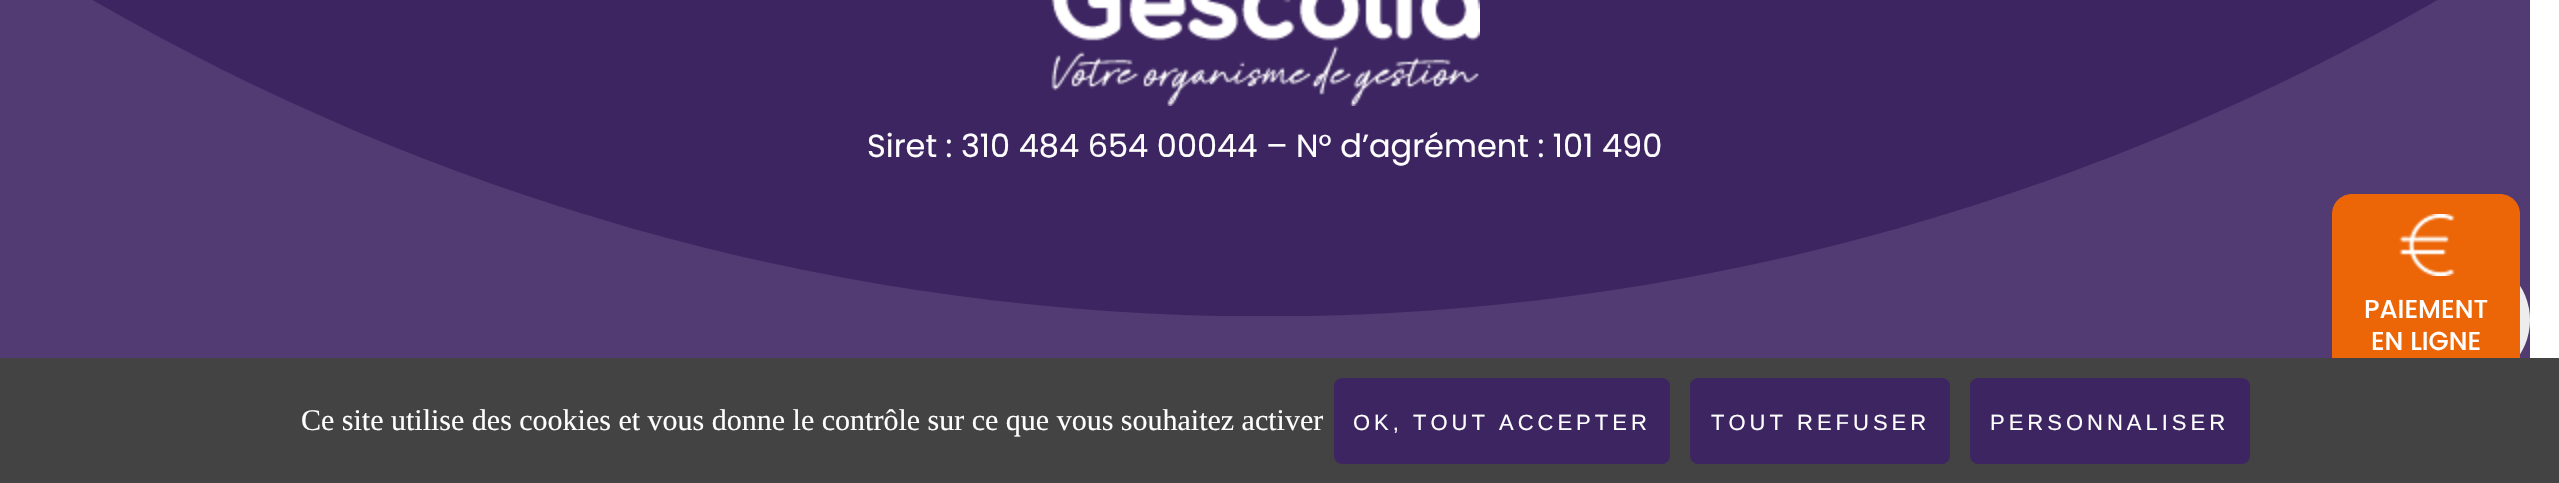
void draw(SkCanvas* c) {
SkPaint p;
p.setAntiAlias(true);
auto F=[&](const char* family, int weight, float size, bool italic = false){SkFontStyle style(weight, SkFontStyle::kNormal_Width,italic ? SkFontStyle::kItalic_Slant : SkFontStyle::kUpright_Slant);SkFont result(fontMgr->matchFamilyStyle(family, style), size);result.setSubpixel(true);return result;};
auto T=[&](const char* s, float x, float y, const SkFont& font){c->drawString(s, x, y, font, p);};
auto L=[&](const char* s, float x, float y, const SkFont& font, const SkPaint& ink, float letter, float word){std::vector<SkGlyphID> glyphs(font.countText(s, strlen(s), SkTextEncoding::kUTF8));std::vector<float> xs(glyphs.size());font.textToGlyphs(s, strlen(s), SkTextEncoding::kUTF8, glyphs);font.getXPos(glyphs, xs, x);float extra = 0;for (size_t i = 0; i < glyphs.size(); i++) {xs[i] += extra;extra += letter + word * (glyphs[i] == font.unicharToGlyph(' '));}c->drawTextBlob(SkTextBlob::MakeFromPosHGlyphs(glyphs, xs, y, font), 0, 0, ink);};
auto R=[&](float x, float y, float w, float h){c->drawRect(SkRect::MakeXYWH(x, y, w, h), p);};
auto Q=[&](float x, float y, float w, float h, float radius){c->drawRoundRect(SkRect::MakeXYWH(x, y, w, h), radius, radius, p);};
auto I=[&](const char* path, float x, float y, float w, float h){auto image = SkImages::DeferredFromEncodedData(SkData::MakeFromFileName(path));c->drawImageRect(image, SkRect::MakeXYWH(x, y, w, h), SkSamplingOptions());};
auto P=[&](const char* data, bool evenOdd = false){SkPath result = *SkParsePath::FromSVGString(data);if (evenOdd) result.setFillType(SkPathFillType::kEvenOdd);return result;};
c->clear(0xffffffff);
p.setColor(0xff513b72);
R(0,0,2530,358);
p.setColor(0xff3d2562);
c->drawPath(P("M200-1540h2130c110 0 200 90 200 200v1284c-360 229-776 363-1220 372h-90c-444-9-860-143-1220-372v-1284c0-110 90-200 200-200z"),p);
I("1.png",1051,0,429,106);
auto f1 = F("Poppins",400,32);
p.setColor(0xffffffff);
T("Siret : 310 484 654 00044 – N° d’agrément : 101 490",867,157,f1);
p.setColor(0xffededed);
c->drawCircle(2466,320,64,p);
p.setColor(0xffec6608);
c->drawPath(P("M2352 194h148c11 0 20 9 20 20v166h-188v-166c0-11 9-20 20-20z"),p);
I("2.png",2399,214,56,62);
auto f2 = F("Poppins",500,26);
p.setColor(0xffffffff);
T("PAIEMENT",2364,318,f2);
T("EN LIGNE",2371,350,f2);
p.setColor(0xff434343);
R(0,358,2559,125);
auto f3 = F("Liberation Serif",400,30);
p.setColor(0xffffffff);
T("Ce site utilise des cookies et vous donne le contrôle sur ce que vous souhaitez activer",301,430,f3);
p.setColor(0xff3d2562);
Q(1334,378,336,86,8);
auto f4 = F("Liberation Sans",400,22);
p.setColor(0xffffffff);
L("OK, TOUT ACCEPTER",1353,430,f4,p,4,0);
p.setColor(0xff3d2562);
Q(1690,378,260,86,8);
p.setColor(0xffffffff);
L("TOUT REFUSER",1711,430,f4,p,4,0);
p.setColor(0xff3d2562);
Q(1970,378,280,86,8);
p.setColor(0xffffffff);
L("PERSONNALISER",1990,430,f4,p,4,0);
}
